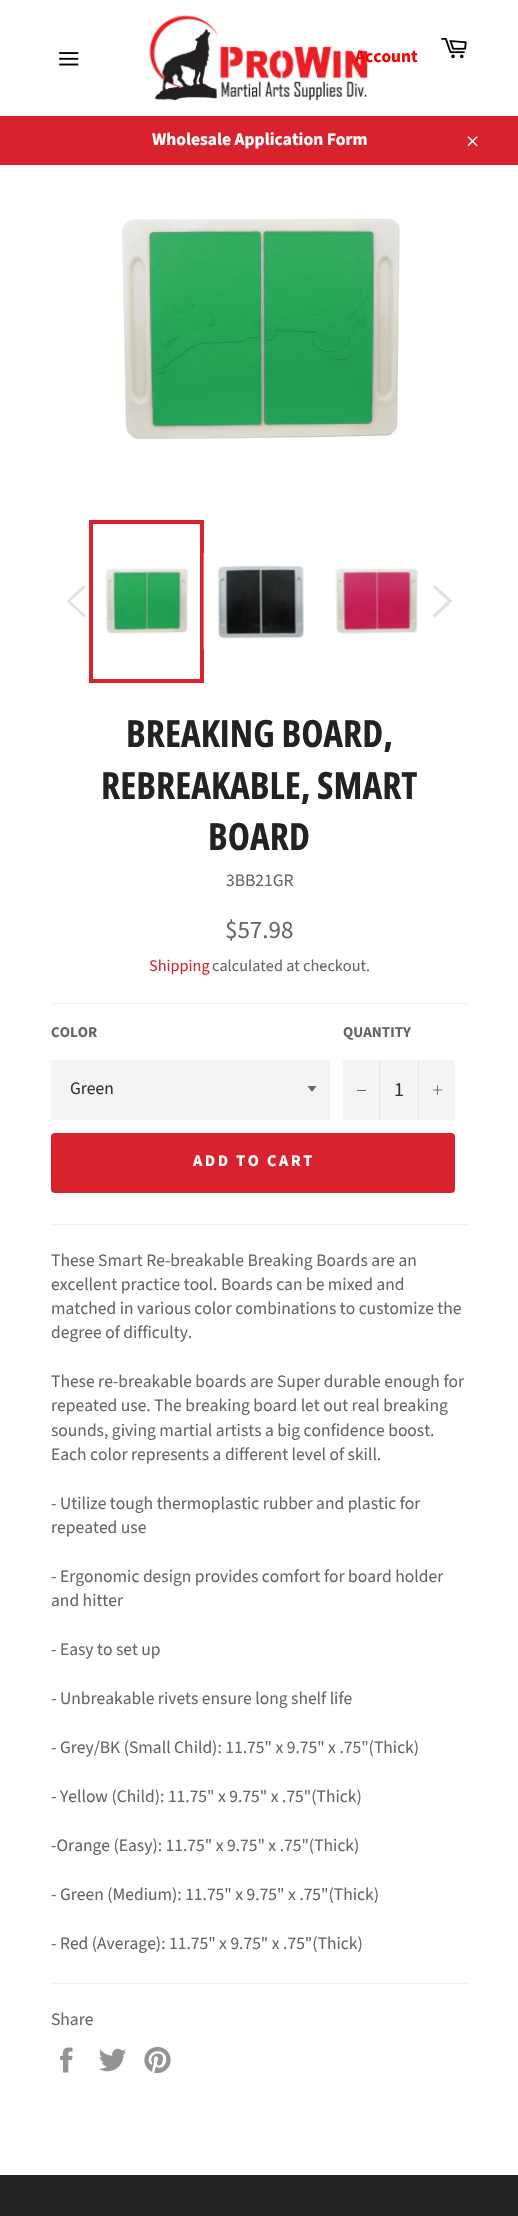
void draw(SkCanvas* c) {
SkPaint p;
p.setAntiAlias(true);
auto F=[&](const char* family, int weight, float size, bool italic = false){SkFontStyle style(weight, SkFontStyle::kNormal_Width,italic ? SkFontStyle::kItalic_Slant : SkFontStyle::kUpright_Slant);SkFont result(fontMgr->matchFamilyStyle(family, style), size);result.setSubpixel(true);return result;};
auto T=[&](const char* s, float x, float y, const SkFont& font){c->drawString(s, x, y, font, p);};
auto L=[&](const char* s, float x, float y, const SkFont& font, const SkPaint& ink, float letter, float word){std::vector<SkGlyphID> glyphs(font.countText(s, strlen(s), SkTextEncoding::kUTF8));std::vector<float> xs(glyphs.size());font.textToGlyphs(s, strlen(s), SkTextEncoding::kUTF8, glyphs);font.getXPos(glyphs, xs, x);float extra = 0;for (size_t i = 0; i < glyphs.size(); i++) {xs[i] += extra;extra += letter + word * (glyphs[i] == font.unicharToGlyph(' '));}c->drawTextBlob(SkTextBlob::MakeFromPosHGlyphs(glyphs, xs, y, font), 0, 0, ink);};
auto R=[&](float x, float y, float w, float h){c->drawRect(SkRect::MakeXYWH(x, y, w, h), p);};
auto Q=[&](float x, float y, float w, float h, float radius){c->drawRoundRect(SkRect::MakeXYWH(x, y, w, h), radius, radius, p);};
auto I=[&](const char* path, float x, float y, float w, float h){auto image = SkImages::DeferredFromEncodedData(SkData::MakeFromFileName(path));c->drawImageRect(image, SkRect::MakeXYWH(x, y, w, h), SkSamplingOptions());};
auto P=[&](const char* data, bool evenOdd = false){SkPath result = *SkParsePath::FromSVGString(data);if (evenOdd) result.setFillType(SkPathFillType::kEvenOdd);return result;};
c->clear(0xffffffff);
I("1.png",59,52,20,14);
I("2.png",149,15,220,86);
auto f1 = F("Source Sans Pro",700,17.5);
p.setColor(0xffff0000);
T("Account",355,62,f1);
I("3.png",441,38,26,21);
p.setColor(0xffd8232f);
R(0,116,518,49);
p.setColor(0xffffffff);
T("Wholesale Application Form",152,145,f1);
I("4.png",467,136,11,11);
I("5.png",122,218,278,222);
p.setColor(0xffe0e0e0);
c->drawPath(P("M86 615.5l-2 2l-17.5-16.5l17.5-16l2 2l-15.5 14z"),p);
I("6.png",105,568,84,66);
p.setStroke(true);
p.setStrokeWidth(4);
p.setColor(0xffd8232f);
c->drawRect(SkRect::MakeXYWH(91,522,111,159),p);
I("7.png",203,552,102,98);
I("8.png",335,567,84,67);
p.setStroke(false);
p.setColor(0xffe0e0e0);
c->drawPath(P("M432.5 587l2.5-2l17.5 16l-17.5 16.5l-2.5-2l15.5-14.5z"),p);
auto f2 = F("Open Sans Condensed",700,37.5);
p.setColor(0xff222222);
T("BREAKING BOARD,",126,747,f2);
T("REBREAKABLE, SMART",101,799,f2);
T("BOARD",208,850,f2);
auto f3 = F("Source Sans Pro",400,17.5);
p.setColor(0xff666666);
T("3BB21GR",226,886,f3);
auto f4 = F("Source Sans Pro",400,25);
T("$57.98",225,938,f4);
auto f5 = F("Source Sans Pro",400,16.25);
p.setColor(0xffd8232f);
T("Shipping",149,971,f5);
p.setColor(0xff666666);
T("calculated at checkout.",212,971,f5);
p.setColor(0xfff0f0f0);
R(51,1003,417,1);
auto f6 = F("Source Sans Pro",700,15);
p.setColor(0xff666666);
T("COLOR",51,1037,f6);
p.setColor(0xfff4f4f4);
R(51,1060,279,60);
p.setColor(0xff666666);
c->drawPath(P("M307.5 1086l4.5 6l4.5-6z"),p);
p.setColor(0xff333333);
T("Green",70,1094,f3);
p.setColor(0xff666666);
T("QUANTITY",343,1037,f6);
p.setColor(0xfff4f4f4);
R(343,1060,112,60);
p.setColor(0xffe7e7e7);
R(379,1060,1,60);
p.setColor(0xff666666);
R(357,1090,9,1);
auto f7 = F("Source Sans Pro",400,20);
p.setColor(0xff333333);
T("1",394,1096,f7);
p.setColor(0xffe7e7e7);
R(418,1060,1,60);
I("9.png",433,1085,10,10);
p.setColor(0xffd8232f);
Q(51,1133,404,60,4);
auto f8 = F("Source Sans Pro",700,16.25);
p.setColor(0xffffffff);
L("ADD TO CART",193,1166,f8,p,2.5,0);
p.setColor(0xfff0f0f0);
R(51,1224,417,1);
p.setColor(0xff666666);
T("These Smart Re-breakable Breaking Boards are an",51,1266,f3);
T("excellent practice tool. Boards can be mixed and",51,1290,f3);
T("matched in various color combinations to customize the",51,1314,f3);
T("degree of difficulty.",51,1338,f3);
T("These re-breakable boards are Super durable enough for",51,1387,f3);
T("repeated use. The breaking board let out real breaking",51,1411,f3);
T("sounds, giving martial artists a big confidence boost.",51,1436,f3);
T("Each color represents a different level of skill.",51,1460,f3);
T("- Utilize tough thermoplastic rubber and plastic for",51,1509,f3);
T("repeated use",51,1533,f3);
T("- Ergonomic design provides comfort for board holder",51,1582,f3);
T("and hitter",51,1606,f3);
T("- Easy to set up",51,1655,f3);
T("- Unbreakable rivets ensure long shelf life",51,1704,f3);
T("- Grey/BK (Small Child): 11.75\" x 9.75\" x .75\"(Thick)",51,1753,f3);
T("- Yellow (Child): 11.75\" x 9.75\" x .75\"(Thick)",51,1802,f3);
T("-Orange (Easy): 11.75\" x 9.75\" x .75\"(Thick)",51,1851,f3);
T("- Green (Medium): 11.75\" x 9.75\" x .75\"(Thick)",51,1900,f3);
T("- Red (Average): 11.75\" x 9.75\" x .75\"(Thick)",51,1949,f3);
p.setColor(0xfff0f0f0);
R(51,1983,417,1);
p.setColor(0xff666666);
T("Share",51,2025,f3);
I("10.png",60,2047,13,26);
I("11.png",99,2048,28,24);
I("12.png",144,2046,27,28);
p.setColor(0xff222222);
R(0,2175,518,41);
}
